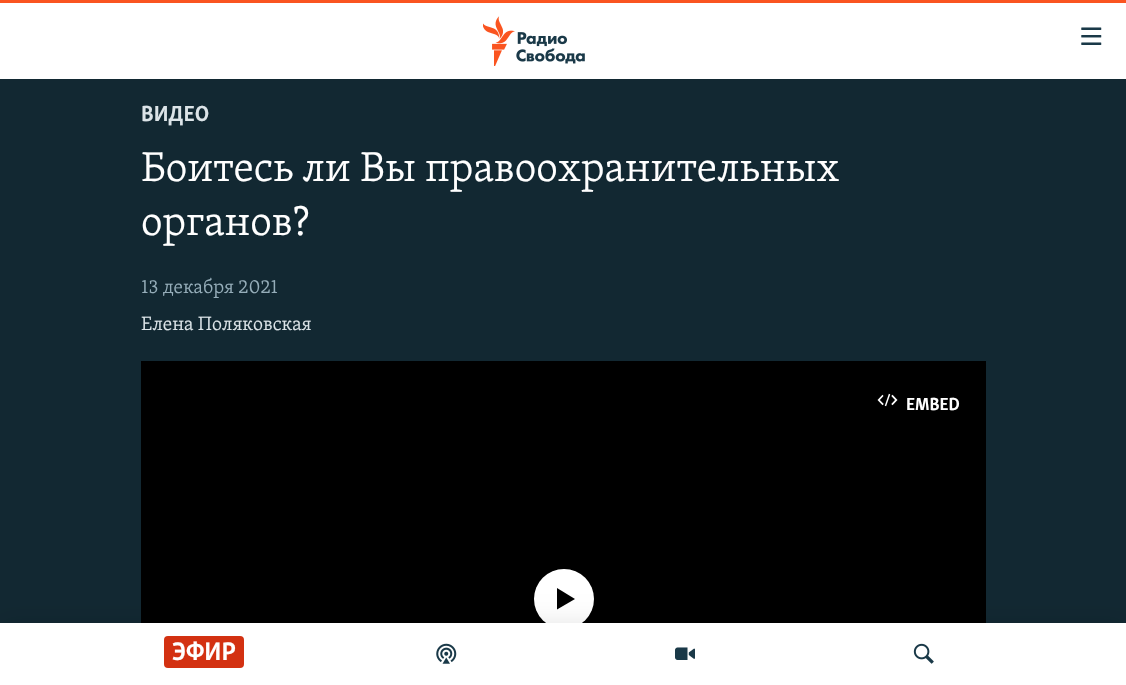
void draw(SkCanvas* c) {
SkPaint p;
p.setAntiAlias(true);
auto F=[&](const char* family, int weight, float size, bool italic = false){SkFontStyle style(weight, SkFontStyle::kNormal_Width,italic ? SkFontStyle::kItalic_Slant : SkFontStyle::kUpright_Slant);SkFont result(fontMgr->matchFamilyStyle(family, style), size);result.setSubpixel(true);return result;};
auto T=[&](const char* s, float x, float y, const SkFont& font){c->drawString(s, x, y, font, p);};
auto R=[&](float x, float y, float w, float h){c->drawRect(SkRect::MakeXYWH(x, y, w, h), p);};
auto Q=[&](float x, float y, float w, float h, float radius){c->drawRoundRect(SkRect::MakeXYWH(x, y, w, h), radius, radius, p);};
auto I=[&](const char* path, float x, float y, float w, float h){auto image = SkImages::DeferredFromEncodedData(SkData::MakeFromFileName(path));c->drawImageRect(image, SkRect::MakeXYWH(x, y, w, h), SkSamplingOptions());};
auto P=[&](const char* data, bool evenOdd = false){SkPath result = *SkParsePath::FromSVGString(data);if (evenOdd) result.setFillType(SkPathFillType::kEvenOdd);return result;};
c->clear(0xff122832);
auto f1 = F("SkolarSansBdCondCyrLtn",700,22.5);
p.setColor(0xffdce4e8);
T("ВИДЕО",141,121,f1);
auto f2 = F("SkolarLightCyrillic",300,42.75);
p.setColor(0xffffffff);
T("Боитесь ли Вы правоохранительных",141,181,f2);
T("органов?",141,235,f2);
auto f3 = F("SkolarLightCyrillic",300,19.75);
p.setColor(0xff95adb9);
T("13 декабря 2021",141,293,f3);
p.setColor(0xffdce4e8);
T("Елена Поляковская",141,330,f3);
p.setColor(0xff000000);
R(141,361,845,262);
I("1.png",877,393,21,14);
auto f4 = F("SkolarSansBdCondCyrLtn",700,18);
p.setColor(0xffffffff);
T("EMBED",906,410,f4);
c->drawCircle(564,599,30,p);
p.setColor(0xff000000);
c->drawPath(P("M557 609.5l18-10.5l-18-11z"),p);
p.setColor(0xffffffff);
R(0,3,1126,76);
p.setColor(0xfffa5420);
R(0,0,1126,3);
I("2.png",483,16,102,50);
I("3.png",1081,27,21,18);
p.setColor(0x1a000000);
p.setMaskFilter(SkMaskFilter::MakeBlur(kNormal_SkBlurStyle, 12.5));
c->drawRect(SkRect::MakeXYWH(0,623,1126,62),p);
p.setMaskFilter(nullptr);
p.setColor(0xffffffff);
R(0,623,1126,62);
p.setColor(0xffd33111);
Q(164,636,80,32,4);
auto f5 = F("SkolarSansBdCondCyrLtn",700,26);
p.setColor(0xffffffff);
T("ЭФИР",172,660,f5);
I("4.png",436,643,21,21);
I("5.png",675,647,20,13);
I("6.png",913,643,21,21);
}
